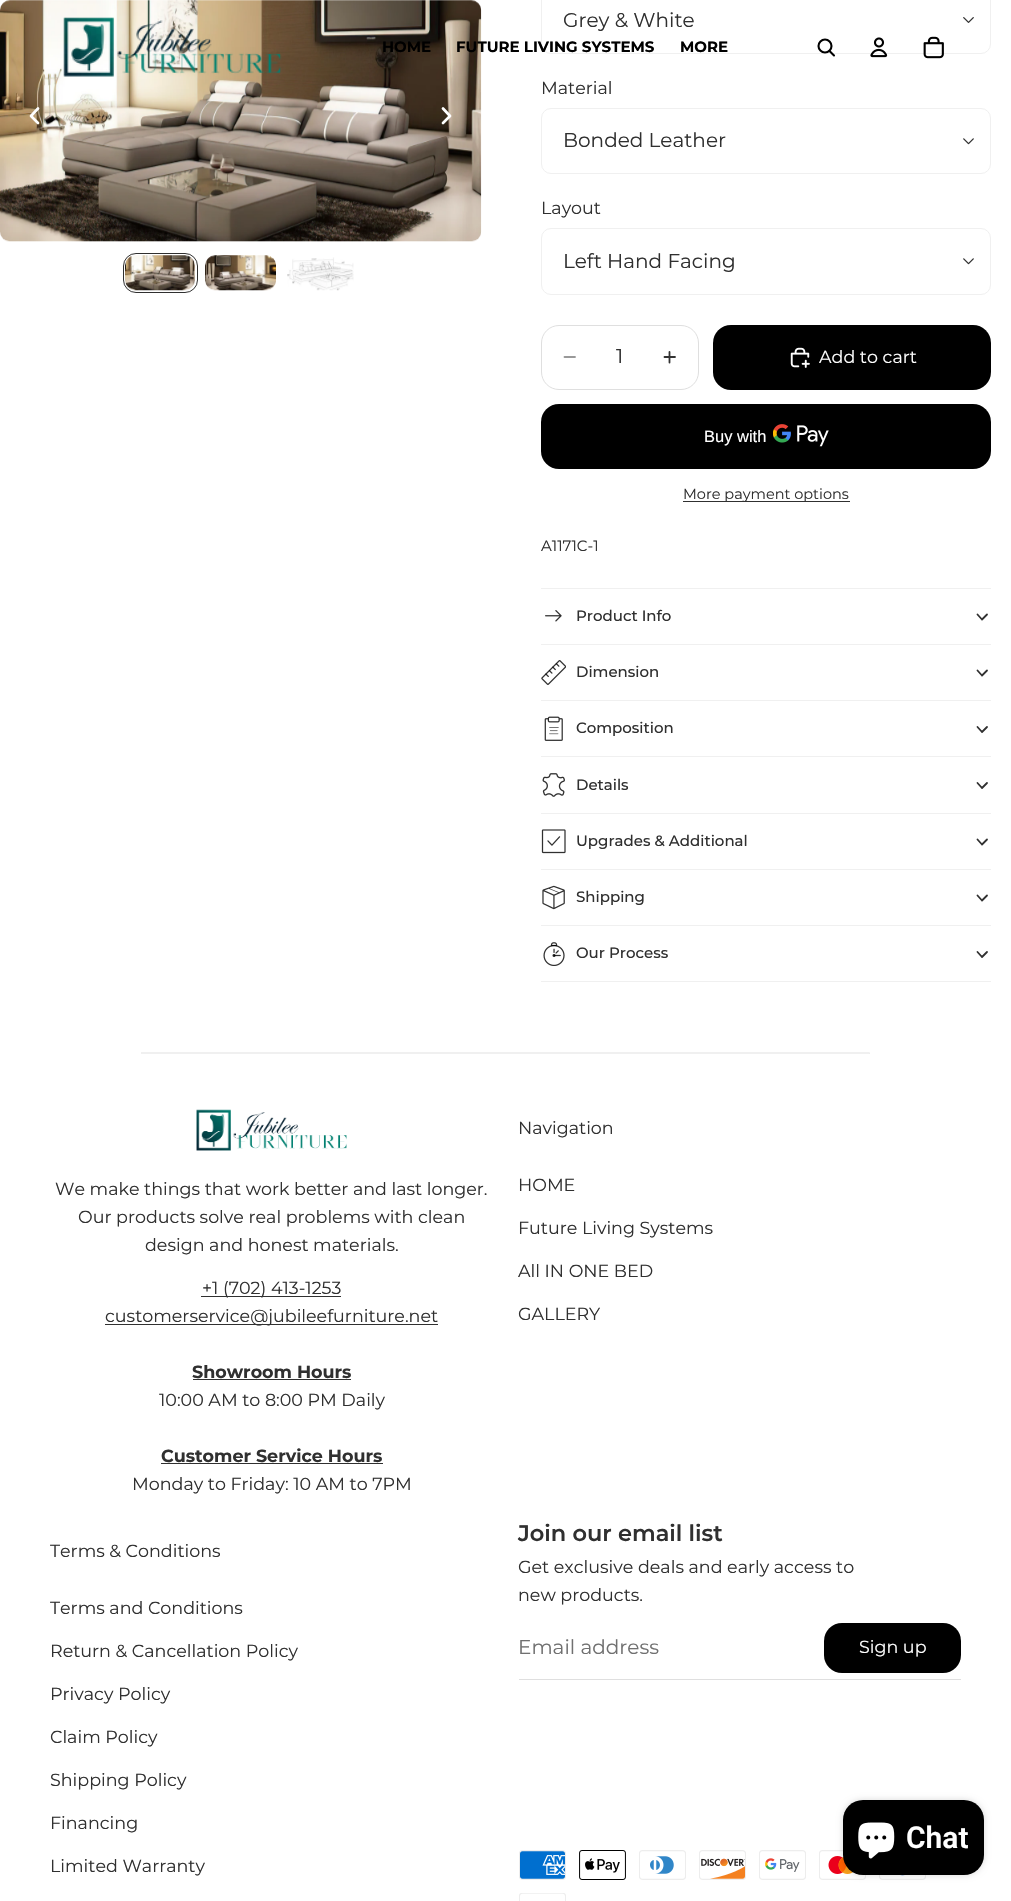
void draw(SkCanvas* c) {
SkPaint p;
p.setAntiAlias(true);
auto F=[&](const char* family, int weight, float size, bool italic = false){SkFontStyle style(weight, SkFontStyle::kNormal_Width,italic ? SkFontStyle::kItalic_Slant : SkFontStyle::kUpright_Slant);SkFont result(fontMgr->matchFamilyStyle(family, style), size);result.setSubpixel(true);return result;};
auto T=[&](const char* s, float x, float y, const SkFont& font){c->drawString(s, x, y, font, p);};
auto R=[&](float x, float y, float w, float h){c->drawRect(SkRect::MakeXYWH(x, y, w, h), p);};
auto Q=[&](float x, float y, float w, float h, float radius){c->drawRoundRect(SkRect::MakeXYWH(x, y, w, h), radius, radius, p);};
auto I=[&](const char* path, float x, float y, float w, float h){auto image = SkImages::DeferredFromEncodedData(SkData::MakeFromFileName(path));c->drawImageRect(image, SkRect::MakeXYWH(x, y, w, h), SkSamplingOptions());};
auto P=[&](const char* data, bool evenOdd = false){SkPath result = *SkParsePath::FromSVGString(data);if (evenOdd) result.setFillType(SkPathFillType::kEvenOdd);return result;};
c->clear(0xffffffff);
I("1.png",0,0,482,242);
p.setStroke(true);
p.setStrokeWidth(2.7);
p.setStrokeCap(SkPaint::kRound_Cap);
p.setStrokeJoin(SkPaint::kRound_Join);
p.setColor(0xffffffff);
c->drawPath(P("M38 108.5l-7 7.5l7 7"),p);
c->drawPath(P("M443 108.5l7 7.5l-7 7"),p);
I("2.png",125,255,70,36);
p.setStrokeWidth(1);
p.setStrokeCap(SkPaint::kButt_Cap);
p.setStrokeJoin(SkPaint::kMiter_Join);
p.setColor(0xff303030);
c->drawRoundRect(SkRect::MakeXYWH(123.5,253.5,74,39),12.5,12.5,p);
I("3.png",205,255,71,36);
I("4.png",287,257,67,34);
p.setColor(0xfff0f0f0);
c->drawRoundRect(SkRect::MakeXYWH(541.5,-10.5,449,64),9.5,9.5,p);
auto f1 = F("Montserrat",400,20);
p.setStroke(false);
p.setColor(0xff303030);
T("Grey & White",563,27,f1);
I("5.png",963,17,11,6);
auto f2 = F("Montserrat",400,17.5);
T("Material",541,94,f2);
p.setStroke(true);
p.setColor(0xfff0f0f0);
c->drawRoundRect(SkRect::MakeXYWH(541.5,108.5,449,65),9.5,9.5,p);
p.setStroke(false);
p.setColor(0xff303030);
T("Bonded Leather",563,147,f1);
I("6.png",963,138,11,7);
T("Layout",541,214,f2);
p.setStroke(true);
p.setColor(0xfff0f0f0);
c->drawRoundRect(SkRect::MakeXYWH(541.5,228.5,449,66),9.5,9.5,p);
p.setStroke(false);
p.setColor(0xff303030);
T("Left Hand Facing",563,268,f1);
I("6.png",963,258,11,7);
p.setStroke(true);
p.setColor(0xffdfdfdf);
c->drawRoundRect(SkRect::MakeXYWH(541.5,325.5,157,64),17.5,17.5,p);
p.setStrokeWidth(1.8);
p.setStrokeCap(SkPaint::kRound_Cap);
p.setColor(0xff999999);
c->drawPath(P("M564.5 357h10.5"),p);
p.setStroke(false);
p.setColor(0xff303030);
T("1",616,363,f1);
p.setStroke(true);
p.setColor(0xff333333);
c->drawPath(P("M664.5 357h10.5m-5.5-5v10.5"),p);
p.setStroke(false);
p.setColor(0xff000000);
Q(713,325,278,65,18);
I("7.png",790,347,20,21);
p.setColor(0xffffffff);
T("Add to cart",819,363,f2);
p.setColor(0xff000000);
Q(541,404,450,65,18);
auto f3 = F("Liberation Sans",400,16.5);
p.setColor(0xffffffff);
T("Buy with",704,442,f3);
I("8.png",773,424,56,23);
p.setColor(0xff303030);
R(683,501,167,1);
auto f4 = F("Montserrat",400,14.5);
T("More payment options",683,499,f4);
auto f5 = F("Montserrat",400,15);
T("A1171C-1",541,551,f5);
p.setColor(0xfff0f0f0);
R(541,588,450,1);
I("9.png",545,610,17,12);
auto f6 = F("Montserrat",500,15);
p.setColor(0xff303030);
T("Product Info",576,621,f6);
p.setStroke(true);
p.setStrokeJoin(SkPaint::kRound_Join);
c->drawPath(P("M987 614.5l-5 5l-4.5-5"),p);
p.setStroke(false);
p.setColor(0xfff0f0f0);
R(541,644,450,1);
I("10.png",541,660,25,25);
p.setColor(0xff303030);
T("Dimension",576,677,f6);
p.setStroke(true);
c->drawPath(P("M987 670.5l-5 5l-4.5-5"),p);
p.setStroke(false);
p.setColor(0xfff0f0f0);
R(541,700,450,1);
I("11.png",544,716,19,25);
p.setColor(0xff303030);
T("Composition",576,733,f6);
p.setStroke(true);
c->drawPath(P("M987 727l-5 5l-4.5-5"),p);
p.setStroke(false);
p.setColor(0xfff0f0f0);
R(541,756,450,1);
I("12.png",542,773,23,24);
p.setColor(0xff303030);
T("Details",576,790,f6);
p.setStroke(true);
c->drawPath(P("M987 783l-5 5l-4.5-5"),p);
p.setStroke(false);
p.setColor(0xfff0f0f0);
R(541,813,450,1);
I("13.png",541,829,25,25);
p.setColor(0xff303030);
T("Upgrades & Additional",576,846,f6);
p.setStroke(true);
c->drawPath(P("M987 839.5l-5 5l-4.5-5"),p);
p.setStroke(false);
p.setColor(0xfff0f0f0);
R(541,869,450,1);
I("14.png",542,885,23,25);
p.setColor(0xff303030);
T("Shipping",576,902,f6);
p.setStroke(true);
c->drawPath(P("M987 895.5l-5 5l-4.5-5"),p);
p.setStroke(false);
p.setColor(0xfff0f0f0);
R(541,925,450,1);
R(541,981,450,1);
I("15.png",543,942,22,24);
p.setColor(0xff303030);
T("Our Process",576,958,f6);
p.setStroke(true);
c->drawPath(P("M987 952l-5 5l-4.5-5"),p);
I("16.png",63,17,219,60);
auto f7 = F("Montserrat",700,15);
p.setStroke(false);
p.setColor(0xff000000);
T("HOME",382,52,f7);
T("FUTURE LIVING SYSTEMS",456,52,f7);
T("MORE",680,52,f7);
p.setStroke(true);
p.setStrokeWidth(2.1);
p.setStrokeCap(SkPaint::kButt_Cap);
p.setStrokeJoin(SkPaint::kMiter_Join);
c->drawCircle(825,46,6.5,p);
p.setStrokeCap(SkPaint::kRound_Cap);
p.setStrokeJoin(SkPaint::kRound_Join);
c->drawPath(P("M829.5 51l4.5 4.5"),p);
I("17.png",870,37,18,21);
I("18.png",923,36,21,23);
p.setStroke(false);
p.setColor(0xfff0f0f0);
c->drawPath(P("M870 1052.5v1.5l-1-1.5z"),p);
p.setColor(0x0f000000);
c->drawPath(P("M870 1054h-729v-2h728z"),p);
I("19.png",196,1109,151,42);
p.setColor(0xff303030);
T("We make things that work better and last longer.",55,1195,f2);
T("Our products solve real problems with clean",78,1223,f2);
T("design and honest materials.",145,1251,f2);
R(201,1296,140,1);
T("+1 (702) 413-1253",202,1294,f2);
R(105,1324,333,1);
T("customerservice@jubileefurniture.net",105,1322,f2);
auto f8 = F("Montserrat",700,17.5);
T("Showroom Hours",192,1378,f8);
R(193,1379,158,1);
T("10:00 AM to 8:00 PM Daily",159,1406,f2);
T("Customer Service Hours",161,1462,f8);
R(161,1463,222,1);
T("Monday to Friday: 10 AM to 7PM",132,1490,f2);
T("Navigation",518,1134,f2);
T("HOME",518,1191,f2);
T("Future Living Systems",518,1234,f2);
T("All IN ONE BED",518,1277,f2);
T("GALLERY",518,1320,f2);
T("Terms & Conditions",50,1557,f2);
T("Terms and Conditions",50,1614,f2);
T("Return & Cancellation Policy",50,1657,f2);
T("Privacy Policy",50,1700,f2);
T("Claim Policy",50,1743,f2);
T("Shipping Policy",50,1786,f2);
T("Financing",50,1829,f2);
T("Limited Warranty",50,1872,f2);
auto f9 = F("Montserrat",600,22.5);
T("Join our email list",518,1541,f9);
T("Get exclusive deals and early access to",518,1573,f2);
T("new products.",518,1601,f2);
p.setColor(0xffdfdfdf);
R(519,1679,442,1);
p.setColor(0xff707070);
T("Email address",518,1654,f1);
p.setColor(0xff000000);
Q(824,1623,137,50,18);
p.setColor(0xffffffff);
T("Sign up",859,1653,f2);
I("20.png",519,1850,47,30);
I("21.png",579,1850,47,30);
I("22.png",639,1850,47,30);
I("23.png",699,1850,47,30);
I("24.png",759,1850,47,30);
I("25.png",819,1850,47,30);
I("26.png",879,1875,47,5);
I("27.png",519,1893,47,8);
p.setColor(0x26000000);
p.setMaskFilter(SkMaskFilter::MakeBlur(kNormal_SkBlurStyle, 3));
c->drawRoundRect(SkRect::MakeXYWH(843,1800,141,75),20,20,p);
p.setMaskFilter(nullptr);
p.setColor(0xff000000);
Q(843,1800,141,75,20);
I("28.png",858,1822,37,37);
auto f10 = F("Roboto",600,30);
p.setColor(0xffffffff);
T("Chat",906,1848,f10);
}
